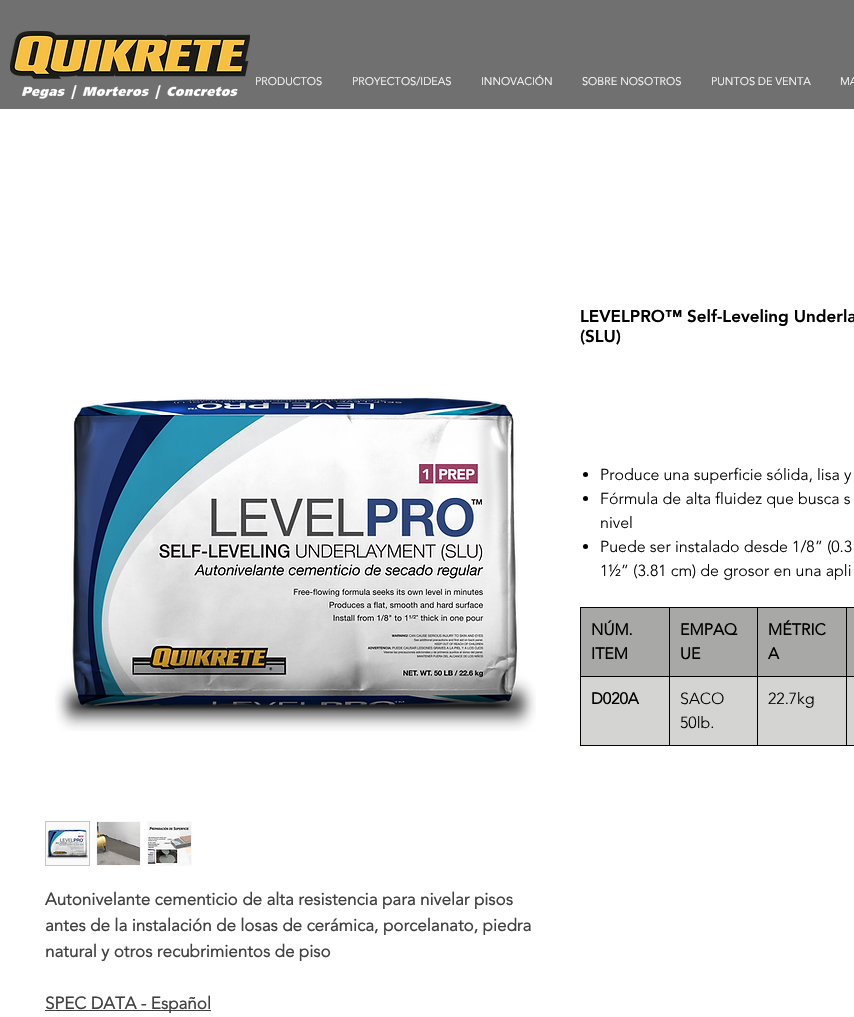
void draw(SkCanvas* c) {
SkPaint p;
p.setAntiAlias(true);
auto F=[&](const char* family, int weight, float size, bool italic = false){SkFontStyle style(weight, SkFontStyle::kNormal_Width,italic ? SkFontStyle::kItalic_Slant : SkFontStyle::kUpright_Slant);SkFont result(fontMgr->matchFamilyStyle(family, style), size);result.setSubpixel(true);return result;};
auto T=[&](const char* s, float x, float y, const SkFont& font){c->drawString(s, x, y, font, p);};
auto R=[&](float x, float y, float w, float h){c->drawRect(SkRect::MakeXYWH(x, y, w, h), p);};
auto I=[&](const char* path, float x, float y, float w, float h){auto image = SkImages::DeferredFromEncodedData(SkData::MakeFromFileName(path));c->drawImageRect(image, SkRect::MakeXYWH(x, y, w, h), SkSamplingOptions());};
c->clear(0xffffffff);
p.setColor(0xff707070);
R(0,0,854,109);
I("1.png",10,31,240,68);
auto f1 = F("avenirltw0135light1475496",300,11);
p.setColor(0xffffffff);
T("PRODUCTOS",255,85,f1);
T("PROYECTOS/IDEAS",352,85,f1);
T("INNOVACIÓN",481,85,f1);
T("SOBRE NOSOTROS",582,85,f1);
T("PUNTOS DE VENTA",711,85,f1);
T("MA",840,85,f1);
auto f2 = F("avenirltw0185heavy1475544",900,17);
p.setColor(0xff000000);
T("LEVELPRO™ Self-Leveling Underla",580,322,f2);
T("(SLU)",580,342,f2);
c->drawCircle(585.5,474.5,2.5,p);
auto f3 = F("avenirltw0135light1475496",300,16);
T("Produce una superficie sólida, lisa y",600,480,f3);
c->drawCircle(585.5,498.5,2.5,p);
T("Fórmula de alta fluidez que busca s",600,504,f3);
T("nivel",600,528,f3);
c->drawCircle(585.5,546.5,2.5,p);
T("Puede ser instalado desde 1/8” (0.3",600,552,f3);
T("1½” (3.81 cm) de grosor en una apli",600,576,f3);
p.setColor(0xffd4d4d2);
R(581,677,273,68);
p.setColor(0xff040404);
R(580,607,1,139);
p.setColor(0xff000000);
R(580,607,1,1);
p.setColor(0xff040404);
R(580,745,90,1);
p.setColor(0xff000000);
R(580,745,1,1);
R(580,676,90,1);
R(669,676,1,70);
p.setColor(0xff040404);
R(669,745,89,1);
p.setColor(0xff000000);
R(669,745,1,1);
R(669,676,89,1);
R(757,676,1,70);
p.setColor(0xff040404);
R(757,745,90,1);
p.setColor(0xff000000);
R(757,745,1,1);
R(757,676,90,1);
R(846,676,1,70);
p.setColor(0xffa8a8a7);
R(581,608,273,68);
p.setColor(0xff030303);
R(581,607,89,1);
p.setColor(0xff000000);
R(669,607,1,69);
p.setColor(0xff030303);
R(669,607,89,1);
p.setColor(0xff000000);
R(669,607,1,1);
R(757,607,1,69);
p.setColor(0xff030303);
R(757,607,90,1);
p.setColor(0xff000000);
R(757,607,1,1);
R(846,607,1,69);
p.setColor(0xff030303);
R(846,607,8,1);
p.setColor(0xff000000);
R(846,607,1,1);
auto f4 = F("avenirltw0135light1475496",700,16);
T("NÚM.",591,635,f4);
T("ITEM",591,659,f4);
T("EMPAQ",680,635,f4);
T("UE",680,659,f4);
T("MÉTRIC",768,635,f4);
T("A",768,659,f4);
T("D020A",591,704,f4);
T("SACO",680,704,f3);
T("50lb.",680,728,f3);
T("22.7kg",768,704,f3);
R(846,676,8,1);
p.setColor(0xff040404);
R(846,745,8,1);
p.setColor(0xff000000);
R(846,745,1,1);
I("2.png",55,396,481,335);
p.setColor(0xfff9f9f9);
c->drawRect(SkRect::MakeXYWH(45.5,821.5,44,44),p);
p.setStroke(true);
p.setStrokeWidth(1);
p.setColor(0xffffcb05);
c->drawRect(SkRect::MakeXYWH(45.5,821.5,44,44),p);
I("3.png",47,829,41,30);
p.setStroke(false);
p.setColor(0xfff9f9f9);
R(96,821,45,45);
I("4.png",97,822,43,43);
R(147,821,45,45);
I("5.png",148,822,43,43);
auto f5 = F("avenirltw0135light1475496",700,17);
p.setColor(0xff414141);
T("Autonivelante cementicio de alta resistencia para nivelar pisos",45,905,f5);
T("antes de la instalación de losas de cerámica, porcelanato, piedra",45,931,f5);
T("natural y otros recubrimientos de piso",45,957,f5);
R(45,1010,166,1);
T("SPEC DATA - Español",45,1009,f5);
}
